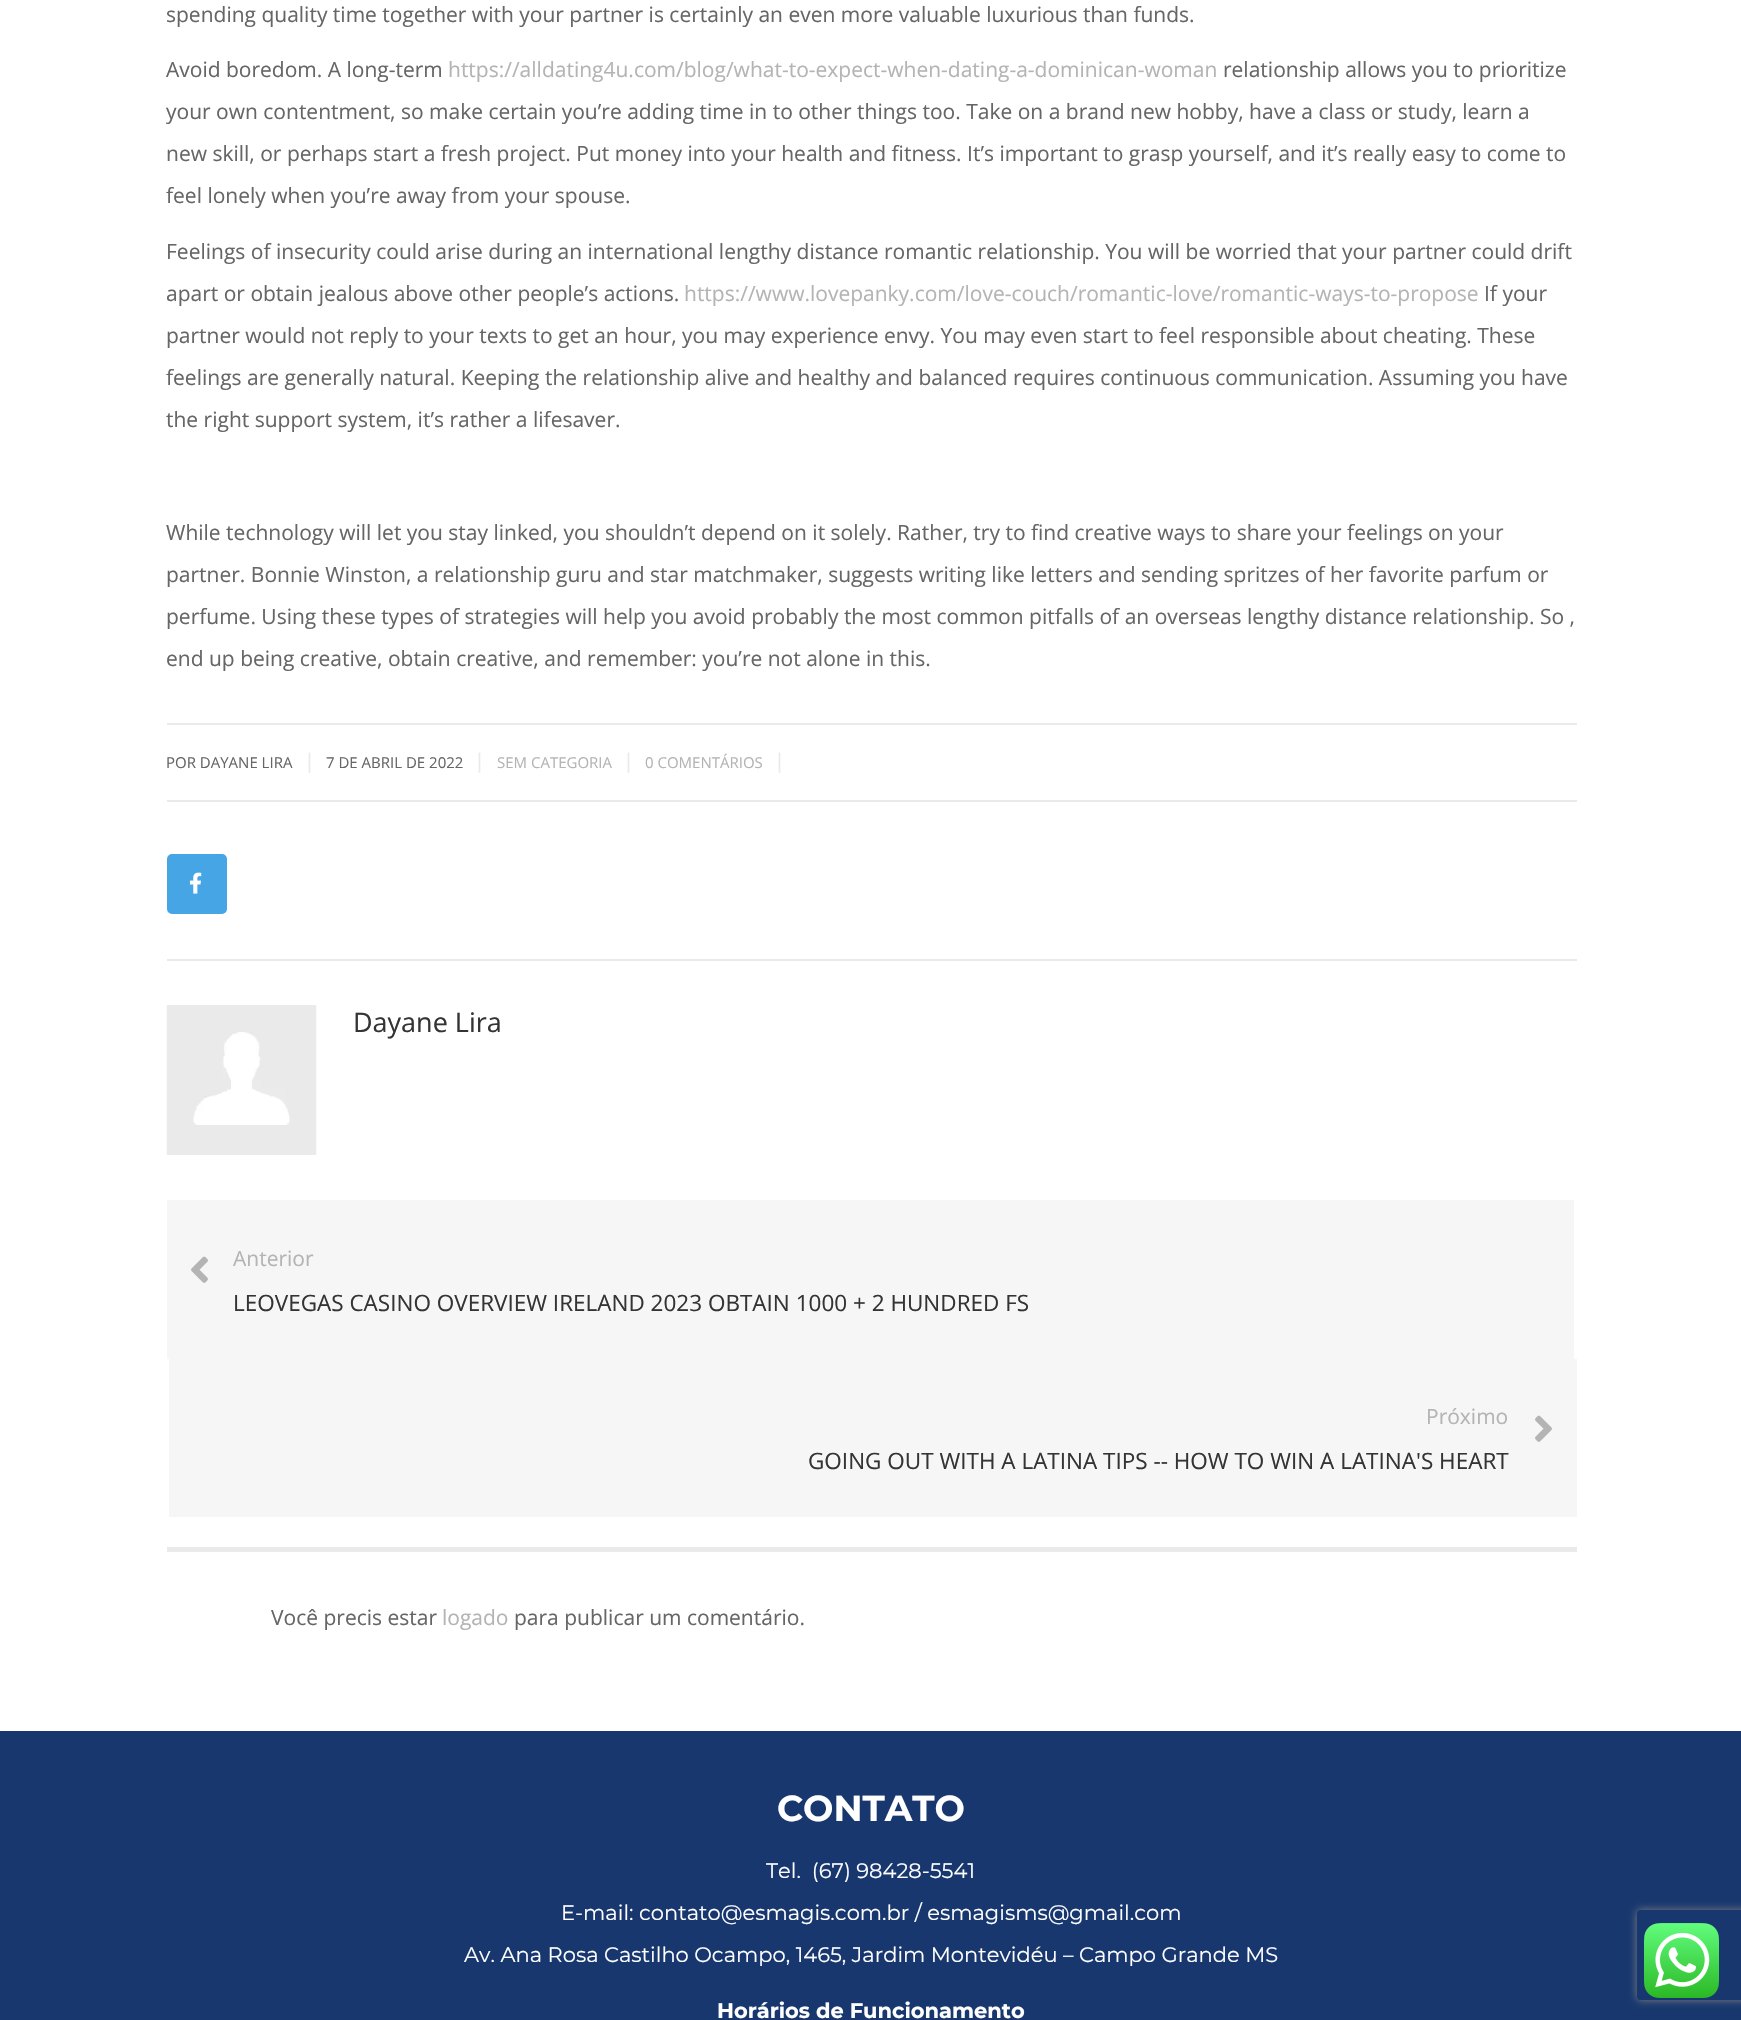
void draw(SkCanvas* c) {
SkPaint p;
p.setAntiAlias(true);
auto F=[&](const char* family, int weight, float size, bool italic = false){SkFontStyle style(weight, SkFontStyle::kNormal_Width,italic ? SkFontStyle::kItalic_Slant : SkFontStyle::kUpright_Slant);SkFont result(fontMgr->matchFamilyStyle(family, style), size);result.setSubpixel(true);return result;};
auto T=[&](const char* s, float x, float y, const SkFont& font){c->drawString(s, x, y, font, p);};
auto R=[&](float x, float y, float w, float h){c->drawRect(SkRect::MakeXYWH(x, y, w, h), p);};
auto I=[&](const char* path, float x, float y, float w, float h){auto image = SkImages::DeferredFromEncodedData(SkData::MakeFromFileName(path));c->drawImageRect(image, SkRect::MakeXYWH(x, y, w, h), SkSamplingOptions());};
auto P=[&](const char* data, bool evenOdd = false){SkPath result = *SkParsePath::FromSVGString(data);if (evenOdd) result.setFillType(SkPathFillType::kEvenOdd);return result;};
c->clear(0xffffffff);
auto f1 = F("Open Sans",400,21);
p.setColor(0xff666666);
T("spending quality time together with your partner is certainly an even more valuable luxurious than funds.",166,22,f1);
T("Avoid boredom. A long-term",166,77,f1);
p.setColor(0xffb5b4b4);
T("https://alldating4u.com/blog/what-to-expect-when-dating-a-dominican-woman",448,77,f1);
p.setColor(0xff666666);
T("relationship allows you to prioritize",1223,77,f1);
T("your own contentment, so make certain you’re adding time in to other things too. Take on a brand new hobby, have a class or study, learn a",166,119,f1);
T("new skill, or perhaps start a fresh project. Put money into your health and fitness. It’s important to grasp yourself, and it’s really easy to come to",166,161,f1);
T("feel lonely when you’re away from your spouse.",166,203,f1);
T("Feelings of insecurity could arise during an international lengthy distance romantic relationship. You will be worried that your partner could drift",166,259,f1);
T("apart or obtain jealous above other people’s actions.",166,301,f1);
p.setColor(0xffb5b4b4);
T("https://www.lovepanky.com/love-couch/romantic-love/romantic-ways-to-propose",684,301,f1);
p.setColor(0xff666666);
T("If your",1484,301,f1);
T("partner would not reply to your texts to get an hour, you may experience envy. You may even start to feel responsible about cheating. These",166,343,f1);
T("feelings are generally natural. Keeping the relationship alive and healthy and balanced requires continuous communication. Assuming you have",166,385,f1);
T("the right support system, it’s rather a lifesaver.",166,427,f1);
T("While technology will let you stay linked, you shouldn’t depend on it solely. Rather, try to find creative ways to share your feelings on your",166,540,f1);
T("partner. Bonnie Winston, a relationship guru and star matchmaker, suggests writing like letters and sending spritzes of her favorite parfum or",166,582,f1);
T("perfume. Using these types of strategies will help you avoid probably the most common pitfalls of an overseas lengthy distance relationship. So ,",166,624,f1);
T("end up being creative, obtain creative, and remember: you’re not alone in this.",166,666,f1);
p.setColor(0xffeaeaea);
R(167,723,1410,2);
R(167,800,1410,2);
auto f2 = F("Open Sans",400,15);
p.setColor(0xff666666);
T("POR DAYANE LIRA",166,768,f2);
auto f3 = F("Open Sans",400,20);
p.setColor(0xffeaeaea);
T("|",304,768,f3);
p.setColor(0xff666666);
T("7 DE ABRIL DE 2022",326,768,f2);
p.setColor(0xffeaeaea);
T("|",474,768,f3);
p.setColor(0xffb5b4b4);
T("SEM CATEGORIA",497,768,f2);
p.setColor(0xffeaeaea);
T("|",623,768,f3);
p.setColor(0xffb5b4b4);
T("0 COMENTÁRIOS",645,768,f2);
p.setColor(0xffeaeaea);
T("|",774,768,f3);
p.setColor(0xff46a5e5);
c->drawRoundRect(SkRect::MakeXYWH(168.5,855.5,57,57),3.5,3.5,p);
p.setStroke(true);
p.setStrokeWidth(3);
c->drawRoundRect(SkRect::MakeXYWH(168.5,855.5,57,57),3.5,3.5,p);
I("1.png",189,872,13,22);
p.setStroke(false);
p.setColor(0xffeaeaea);
R(167,959,1410,2);
I("2.png",166,1005,151,150);
auto f4 = F("Open Sans",400,27);
p.setColor(0xff343434);
T("Dayane Lira",353,1032,f4);
p.setColor(0xfff6f6f6);
R(167,1200,1410,317);
p.setColor(0xffffffff);
R(1574,1200,3,159);
I("3.png",191,1256,17,27);
p.setColor(0xffb5b4b4);
T("Anterior",233,1266,f1);
auto f5 = F("Open Sans",400,22.5);
p.setColor(0xff343434);
T("LEOVEGAS CASINO OVERVIEW IRELAND 2023 OBTAIN 1000 + 2 HUNDRED FS",233,1311,f5);
p.setColor(0xffffffff);
R(167,1359,2,158);
p.setColor(0xffb5b4b4);
T("Próximo",1426,1424,f1);
p.setColor(0xff343434);
T("GOING OUT WITH A LATINA TIPS -- HOW TO WIN A LATINA'S HEART",808,1469,f5);
I("4.png",1535,1415,17,27);
p.setColor(0xffeaeaea);
R(167,1547,1410,5);
p.setColor(0xff666666);
T("Você precis estar",271,1625,f1);
p.setColor(0xffb5b4b4);
T("logado",442,1625,f1);
p.setColor(0xff666666);
T("para publicar um comentário.",514,1625,f1);
p.setColor(0xff17376e);
R(0,1731,1741,289);
auto f6 = F("Montserrat",700,36);
p.setColor(0xffffffff);
T("CONTATO",777,1821,f6);
auto f7 = F("Montserrat",400,21);
T("Tel.  (67) 98428-5541",766,1878,f7);
T("E-mail: contato@esmagis.com.br / esmagisms@gmail.com",561,1920,f7);
T("Av. Ana Rosa Castilho Ocampo, 1465, Jardim Montevidéu – Campo Grande MS",464,1962,f7);
auto f8 = F("Montserrat",700,21);
T("Horários de Funcionamento",717,2018,f8);
c->save();
c->clipPath(P("M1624 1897h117v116h-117zm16 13h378c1.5 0 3 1.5 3 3v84c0 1.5-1.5 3-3 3h-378c-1.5 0-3-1.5-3-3v-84c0-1.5 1.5-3 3-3z",true),true);
p.setColor(0xff808080);
p.setMaskFilter(SkMaskFilter::MakeBlur(kNormal_SkBlurStyle, 4));
c->drawRoundRect(SkRect::MakeXYWH(1637,1910,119,90),3,3,p);
p.setMaskFilter(nullptr);
c->restore();
I("5.png",1644,1923,75,75);
}
